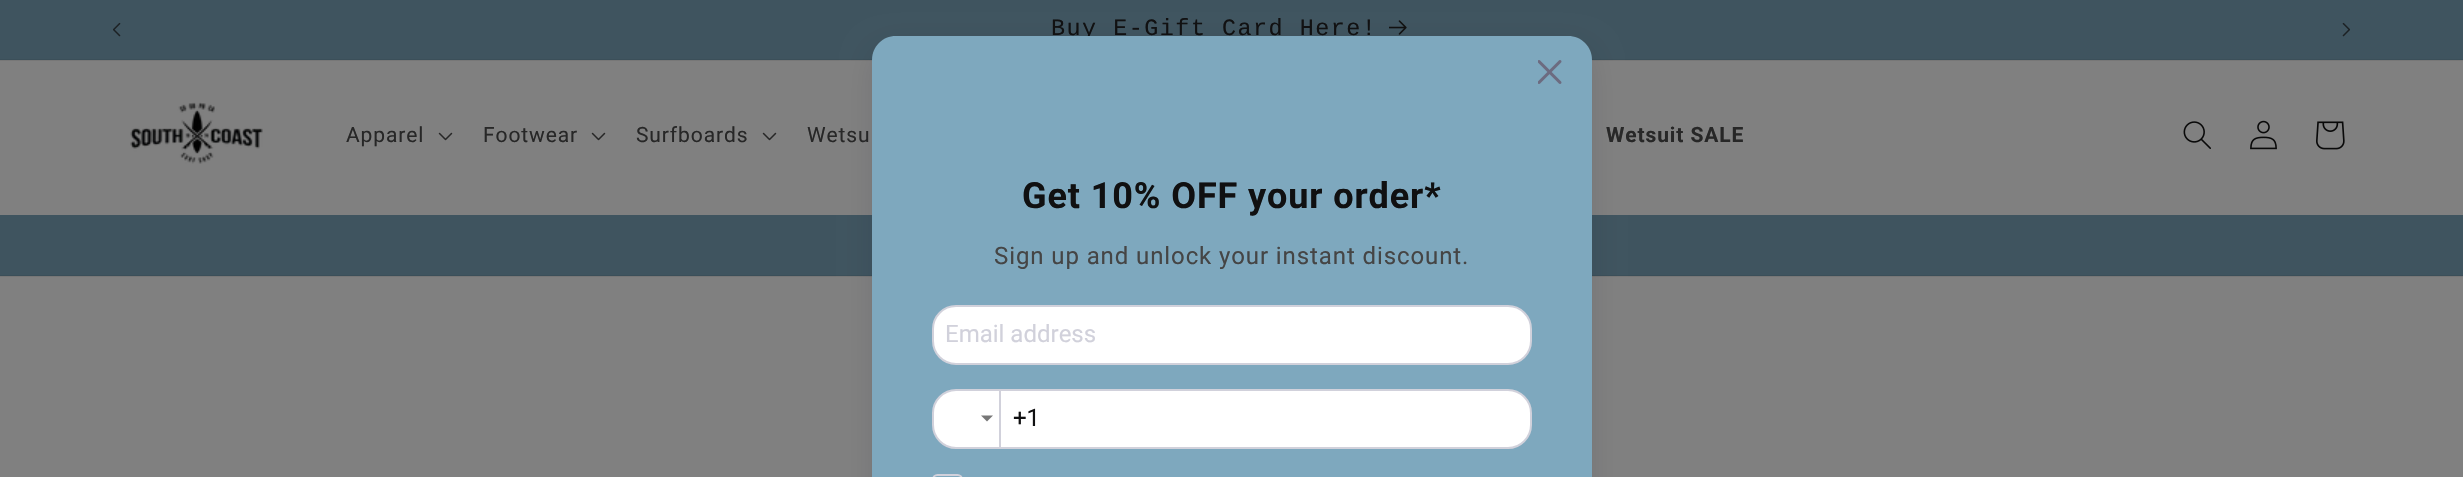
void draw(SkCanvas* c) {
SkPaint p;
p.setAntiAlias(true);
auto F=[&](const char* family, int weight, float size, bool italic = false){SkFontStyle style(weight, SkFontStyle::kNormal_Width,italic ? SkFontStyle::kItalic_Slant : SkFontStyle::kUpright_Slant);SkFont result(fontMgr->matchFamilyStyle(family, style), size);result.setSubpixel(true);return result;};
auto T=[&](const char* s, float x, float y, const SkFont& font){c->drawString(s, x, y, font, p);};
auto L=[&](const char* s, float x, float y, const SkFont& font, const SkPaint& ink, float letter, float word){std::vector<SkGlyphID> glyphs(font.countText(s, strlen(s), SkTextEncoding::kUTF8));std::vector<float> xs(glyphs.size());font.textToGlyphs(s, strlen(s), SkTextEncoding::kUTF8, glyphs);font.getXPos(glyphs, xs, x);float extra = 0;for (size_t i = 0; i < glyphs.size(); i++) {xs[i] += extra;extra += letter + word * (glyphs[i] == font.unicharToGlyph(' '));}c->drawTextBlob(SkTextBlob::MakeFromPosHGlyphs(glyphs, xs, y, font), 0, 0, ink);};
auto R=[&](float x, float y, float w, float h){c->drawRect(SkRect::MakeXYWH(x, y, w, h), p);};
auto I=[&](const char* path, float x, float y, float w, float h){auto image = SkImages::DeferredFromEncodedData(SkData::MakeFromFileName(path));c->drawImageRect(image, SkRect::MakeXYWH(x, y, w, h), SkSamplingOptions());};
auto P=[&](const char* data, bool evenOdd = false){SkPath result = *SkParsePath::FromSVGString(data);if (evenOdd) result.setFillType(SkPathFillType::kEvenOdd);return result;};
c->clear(0xff808080);
p.setColor(0xff777777);
R(0,60,2463,1);
R(0,276,2463,1);
p.setColor(0xff3f545f);
R(0,0,2463,59);
p.setColor(0xff3b4f59);
R(0,59,2463,1);
I("1.png",113,22,8,15);
auto f1 = F("Liberation Mono",400,23.4);
p.setColor(0xff101011);
L("Buy E-Gift Card Here!",1051,35,f1,p,1.5,0);
I("2.png",1389,20,18,15);
I("3.png",2342,22,8,15);
I("4.png",130,102,133,62);
auto f2 = F("Roboto",400,21);
p.setColor(0xff272727);
L("Apparel",346,142,f2,p,.9,0);
I("5.png",438,132,15,9);
L("Footwear",483,142,f2,p,.9,0);
I("5.png",591,132,15,9);
L("Surfboards",636,142,f2,p,.9,0);
I("5.png",762,132,15,9);
L("Wetsu",807,142,f2,p,.9,0);
auto f3 = F("Roboto",700,21);
L("Wetsuit SALE",1606,142,f3,p,.9,0);
I("6.png",2183,121,28,28);
I("7.png",2250,120,27,30);
I("8.png",2316,121,29,29);
p.setColor(0xff3f545f);
R(0,215,2463,60);
p.setColor(0xff3b4f59);
R(0,275,2463,1);
p.setColor(0x1a121127);
p.setMaskFilter(SkMaskFilter::MakeBlur(kNormal_SkBlurStyle, 15));
c->drawRoundRect(SkRect::MakeXYWH(872,48,720,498),24,24,p);
p.setMaskFilter(nullptr);
p.setColor(0xff7ea8be);
c->drawPath(P("M896 36h672c13.5 0 24 10.5 24 24v417h-720v-417c0-13.5 10.5-24 24-24z"),p);
I("9.png",1538,60,24,24);
auto f4 = F("Roboto",700,36);
p.setColor(0xff101011);
L("Get 10% OFF your order*",1022,208,f4,p,.9,0);
auto f5 = F("Roboto",400,24);
p.setColor(0xff454545);
L("Sign up and unlock your instant discount.",994,264,f5,p,.9,0);
p.setColor(0xffffffff);
c->drawRoundRect(SkRect::MakeXYWH(933,306,598,58),23,23,p);
p.setStroke(true);
p.setStrokeWidth(2);
p.setColor(0xffd1d1db);
c->drawRoundRect(SkRect::MakeXYWH(933,306,598,58),23,23,p);
p.setStroke(false);
T("Email address",945,342,f5);
p.setColor(0xffffffff);
c->drawPath(P("M1000 390h508c12.5 0 23 10.5 23 23v12c0 12.5-10.5 23-23 23h-508z"),p);
p.setStroke(true);
p.setColor(0xffd1d1db);
c->drawPath(P("M1000 390h508c12.5 0 23 10.5 23 23v12c0 12.5-10.5 23-23 23h-508z"),p);
p.setStroke(false);
p.setColor(0xffffffff);
c->drawPath(P("M956 390h44v58h-44c-12.5 0-23-10.5-23-23v-12c0-12.5 10.5-23 23-23z"),p);
p.setStroke(true);
p.setColor(0xffd1d1db);
c->drawPath(P("M956 390h44v58h-44c-12.5 0-23-10.5-23-23v-12c0-12.5 10.5-23 23-23z"),p);
p.setStroke(false);
p.setColor(0xff777777);
c->drawPath(P("M981 415.5h12l-6 6z"),p);
p.setColor(0xff101011);
T("+1",1013,426,f5);
p.setStroke(true);
p.setColor(0xffd1d1db);
c->drawRoundRect(SkRect::MakeXYWH(933,475,29,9),5,5,p);
}
